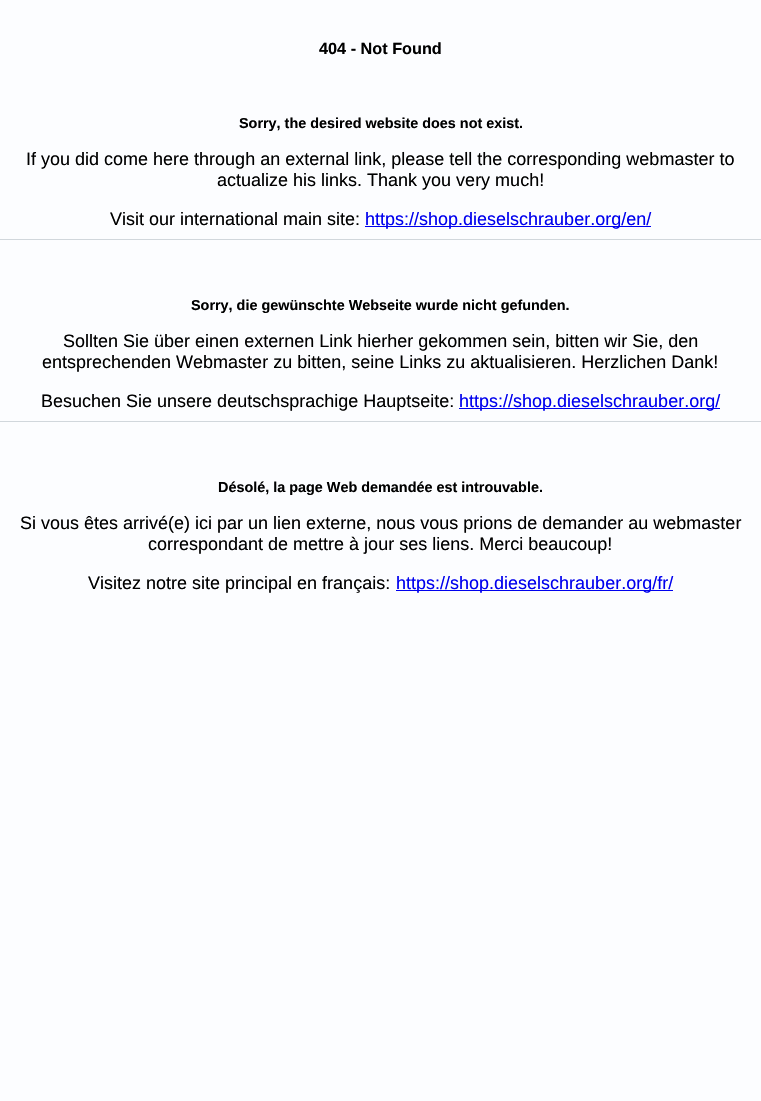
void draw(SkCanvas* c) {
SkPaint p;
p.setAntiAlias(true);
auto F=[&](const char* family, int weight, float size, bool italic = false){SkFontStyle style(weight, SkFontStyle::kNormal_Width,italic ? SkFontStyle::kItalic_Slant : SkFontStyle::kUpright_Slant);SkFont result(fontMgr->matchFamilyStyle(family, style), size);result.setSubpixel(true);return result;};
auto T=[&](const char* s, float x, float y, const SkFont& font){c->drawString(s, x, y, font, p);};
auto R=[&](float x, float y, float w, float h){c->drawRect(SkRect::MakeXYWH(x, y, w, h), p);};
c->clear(0xfffcfdff);
auto f1 = F("Liberation Sans",700,16.25);
p.setColor(0xff000000);
T("404 - Not Found",319,54,f1);
auto f2 = F("Liberation Sans",700,14.4);
T("Sorry, the desired website does not exist.",239,128,f2);
auto f3 = F("Liberation Sans",400,18);
T("If you did come here through an external link, please tell the corresponding webmaster to",26,165,f3);
T("actualize his links. Thank you very much!",217,186,f3);
T("Visit our international main site:",110,225,f3);
p.setColor(0xff0000ee);
R(365,226,286,1);
T("https://shop.dieselschrauber.org/en/",365,225,f3);
p.setColor(0xffd1d7dc);
R(0,239,761,1);
p.setColor(0xff000000);
T("Sorry, die gewünschte Webseite wurde nicht gefunden.",191,310,f2);
T("Sollten Sie über einen externen Link hierher gekommen sein, bitten wir Sie, den",63,347,f3);
T("entsprechenden Webmaster zu bitten, seine Links zu aktualisieren. Herzlichen Dank!",42,368,f3);
T("Besuchen Sie unsere deutschsprachige Hauptseite:",41,407,f3);
p.setColor(0xff0000ee);
R(459,408,261,1);
T("https://shop.dieselschrauber.org/",459,407,f3);
p.setColor(0xffd1d7dc);
R(0,421,761,1);
p.setColor(0xff000000);
T("Désolé, la page Web demandée est introuvable.",218,492,f2);
T("Si vous êtes arrivé(e) ici par un lien externe, nous vous prions de demander au webmaster",20,529,f3);
T("correspondant de mettre à jour ses liens. Merci beaucoup!",148,550,f3);
T("Visitez notre site principal en français:",88,589,f3);
p.setColor(0xff0000ee);
R(396,590,277,1);
T("https://shop.dieselschrauber.org/fr/",396,589,f3);
}
